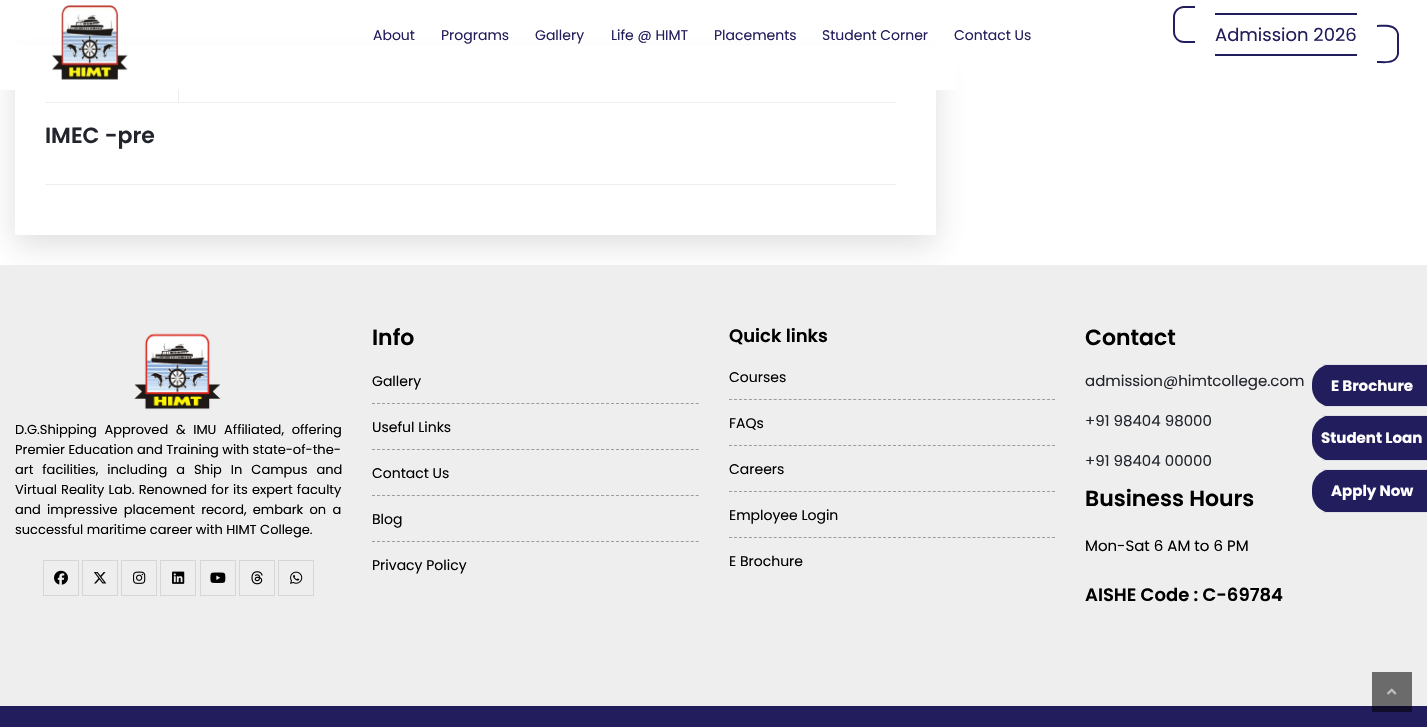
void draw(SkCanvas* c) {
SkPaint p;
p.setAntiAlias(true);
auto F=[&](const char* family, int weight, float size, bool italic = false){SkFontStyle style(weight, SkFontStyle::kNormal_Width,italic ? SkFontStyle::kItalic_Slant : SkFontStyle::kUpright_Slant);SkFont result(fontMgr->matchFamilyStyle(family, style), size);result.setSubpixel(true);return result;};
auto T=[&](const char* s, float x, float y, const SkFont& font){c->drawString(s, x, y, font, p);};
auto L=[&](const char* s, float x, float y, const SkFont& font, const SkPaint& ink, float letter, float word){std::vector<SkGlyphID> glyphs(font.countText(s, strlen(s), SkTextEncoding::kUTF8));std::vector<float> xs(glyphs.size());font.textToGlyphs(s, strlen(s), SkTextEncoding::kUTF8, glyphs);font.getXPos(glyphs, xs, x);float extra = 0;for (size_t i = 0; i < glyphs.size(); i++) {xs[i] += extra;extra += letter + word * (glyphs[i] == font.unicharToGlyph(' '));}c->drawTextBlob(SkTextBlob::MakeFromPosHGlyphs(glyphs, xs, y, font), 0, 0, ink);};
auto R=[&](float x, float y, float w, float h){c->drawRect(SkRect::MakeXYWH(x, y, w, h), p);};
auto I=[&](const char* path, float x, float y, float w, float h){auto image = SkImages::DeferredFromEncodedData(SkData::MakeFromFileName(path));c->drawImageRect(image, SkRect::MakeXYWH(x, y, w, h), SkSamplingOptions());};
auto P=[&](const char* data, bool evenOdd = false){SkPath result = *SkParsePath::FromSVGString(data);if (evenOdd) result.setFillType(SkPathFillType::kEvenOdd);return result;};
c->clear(0xffffffff);
p.setColor(0x29323232);
p.setMaskFilter(SkMaskFilter::MakeBlur(kNormal_SkBlurStyle, 15));
c->drawRect(SkRect::MakeXYWH(15,66,921,179),p);
p.setMaskFilter(nullptr);
p.setColor(0xffffffff);
R(0,45,957,45);
I("1.png",52,4,76,76);
auto f1 = F("Poppins",400,14);
p.setColor(0xff221d5c);
T("About",373,40,f1);
T("Programs",441,40,f1);
T("Gallery",535,40,f1);
T("Life @ HIMT",611,40,f1);
T("Placements",714,40,f1);
T("Student Corner",822,40,f1);
T("Contact Us",954,40,f1);
auto f2 = F("Poppins",400,18);
T("Admission 2026",1215,41,f2);
c->drawPath(P("M1184 6h11v37h-11c-6 0-11-5-11-11v-15c0-6 5-11 11-11zm0 2h11v33h-11c-5 0-9-4-9-9v-15c0-5 4-9 9-9z",true),p);
R(1215,13,142,2);
R(1215,54,142,2);
c->drawPath(P("M1377 25c8 0 19.5-2 22 9v10v10c-2.5 11-14 9-22 9zm0 2c7 0 18-2 20 7v20c-2 9-13 7-20 7z",true),p);
p.setColor(0xffffffff);
R(15,90,921,145);
p.setColor(0xffeeeeee);
R(45,102,851,1);
R(178,90,1,12);
auto f3 = F("Poppins",600,22);
p.setColor(0xff23252d);
T("IMEC -pre",45,143,f3);
p.setColor(0xffeeeeee);
R(45,184,851,1);
R(0,265,1427,441);
p.setColor(0xff6b6b6b);
R(1372,672,40,34);
I("2.png",134,333,87,77);
auto f4 = F("Poppins",400,13);
p.setColor(0xff000000);
L("D.G.Shipping Approved & IMU Affiliated, offering",15,434,f4,p,0,4.25);
T("Premier Education and Training with state-of-the-",15,454,f4);
L("art facilities, including a Ship In Campus and",15,474,f4,p,0,5.5);
L("Virtual Reality Lab. Renowned for its expert faculty",15,494,f4,p,0,.75);
L("and impressive placement record, embark on a",15,514,f4,p,0,2.75);
T("successful maritime career with HIMT College.",15,534,f4);
p.setStroke(true);
p.setStrokeWidth(1);
p.setColor(0xffd6d6d6);
c->drawRect(SkRect::MakeXYWH(43.5,560.5,35,35),p);
I("3.png",54,570,14,15);
c->drawRect(SkRect::MakeXYWH(82.5,560.5,35,35),p);
I("4.png",93,572,14,12);
c->drawRect(SkRect::MakeXYWH(121.5,560.5,35,35),p);
I("5.png",133,571,13,13);
c->drawRect(SkRect::MakeXYWH(160.5,560.5,35,35),p);
I("6.png",172,571,13,13);
c->drawRect(SkRect::MakeXYWH(200.5,560.5,35,35),p);
I("7.png",210,572,16,11);
c->drawRect(SkRect::MakeXYWH(239.5,560.5,35,35),p);
I("8.png",251,571,12,14);
c->drawRect(SkRect::MakeXYWH(278.5,560.5,35,35),p);
I("9.png",290,571,13,13);
p.setStroke(false);
p.setColor(0xff000000);
T("Info",372,345,f3);
p.setStroke(true);
p.setColor(0xff9c9c9c);
p.setPathEffect(SkDashPathEffect::Make({{3,1.98f}}, 0));
c->drawPath(P("M372 403.5h327"),p);
p.setPathEffect(nullptr);
p.setStroke(false);
p.setColor(0xff000000);
T("Gallery",372,386,f1);
p.setStroke(true);
p.setColor(0xff9c9c9c);
p.setPathEffect(SkDashPathEffect::Make({{3,1.98f}}, 0));
c->drawPath(P("M372 449.5h327"),p);
p.setPathEffect(nullptr);
p.setStroke(false);
p.setColor(0xff000000);
T("Useful Links",372,432,f1);
p.setStroke(true);
p.setColor(0xff9c9c9c);
p.setPathEffect(SkDashPathEffect::Make({{3,1.98f}}, 0));
c->drawPath(P("M372 495.5h327"),p);
p.setPathEffect(nullptr);
p.setStroke(false);
p.setColor(0xff000000);
T("Contact Us",372,478,f1);
p.setStroke(true);
p.setColor(0xff9c9c9c);
p.setPathEffect(SkDashPathEffect::Make({{3,1.98f}}, 0));
c->drawPath(P("M372 541.5h327"),p);
p.setPathEffect(nullptr);
p.setStroke(false);
p.setColor(0xff000000);
T("Blog",372,524,f1);
T("Privacy Policy",372,570,f1);
auto f5 = F("Poppins",600,18);
T("Quick links",729,342,f5);
p.setStroke(true);
p.setColor(0xff9c9c9c);
p.setPathEffect(SkDashPathEffect::Make({{3,1.97f}}, 0));
c->drawPath(P("M729 399.5h326"),p);
p.setPathEffect(nullptr);
p.setStroke(false);
p.setColor(0xff000000);
T("Courses",729,382,f1);
p.setStroke(true);
p.setColor(0xff9c9c9c);
p.setPathEffect(SkDashPathEffect::Make({{3,1.97f}}, 0));
c->drawPath(P("M729 445.5h326"),p);
p.setPathEffect(nullptr);
p.setStroke(false);
p.setColor(0xff000000);
T("FAQs",729,428,f1);
p.setStroke(true);
p.setColor(0xff9c9c9c);
p.setPathEffect(SkDashPathEffect::Make({{3,1.97f}}, 0));
c->drawPath(P("M729 491.5h326"),p);
p.setPathEffect(nullptr);
p.setStroke(false);
p.setColor(0xff000000);
T("Careers",729,474,f1);
p.setStroke(true);
p.setColor(0xff9c9c9c);
p.setPathEffect(SkDashPathEffect::Make({{3,1.97f}}, 0));
c->drawPath(P("M729 537.5h326"),p);
p.setPathEffect(nullptr);
p.setStroke(false);
p.setColor(0xff000000);
T("Employee Login",729,520,f1);
T("E Brochure",729,566,f1);
T("Contact",1085,345,f3);
auto f6 = F("Poppins",400,15);
p.setColor(0xff23252d);
T("admission@himtcollege.com",1085,386,f6);
T("+91 98404 98000",1085,426,f6);
T("+91 98404 00000",1085,466,f6);
p.setColor(0xff000000);
T("Business Hours",1085,506,f3);
T("Mon-Sat 6 AM to 6 PM",1085,551,f6);
T("AISHE Code : C-69784",1085,601,f5);
p.setColor(0xff221d5c);
R(0,706,1427,21);
p.setColor(0xff0f0d29);
R(1372,706,40,6);
p.setColor(0xff221d5c);
c->drawPath(P("M1332 364h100v43h-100c-11 0-20-9-20-20v-3c0-11 9-20 20-20z"),p);
p.setColor(0xffdee2e6);
R(1322,364,105,1);
R(1322,406,105,1);
auto f7 = F("Poppins",700,15);
p.setColor(0xffffffff);
T("E Brochure",1331,391,f7);
p.setColor(0xff221d5c);
c->drawPath(P("M1332 415h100v46h-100c-11 0-20-9-20-20v-6c0-11 9-20 20-20z"),p);
p.setColor(0xffdee2e6);
R(1322,415,105,1);
R(1322,460,105,1);
p.setColor(0xffffffff);
T("Student Loan",1321,443,f7);
p.setColor(0xff221d5c);
c->drawPath(P("M1332 469h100v44h-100c-11 0-20-9-20-20v-4c0-11 9-20 20-20z"),p);
p.setColor(0xffdee2e6);
R(1322,469,105,1);
R(1322,512,105,1);
p.setColor(0xffffffff);
T("Apply Now",1331,496,f7);
I("10.png",1387,688,10,7);
}
